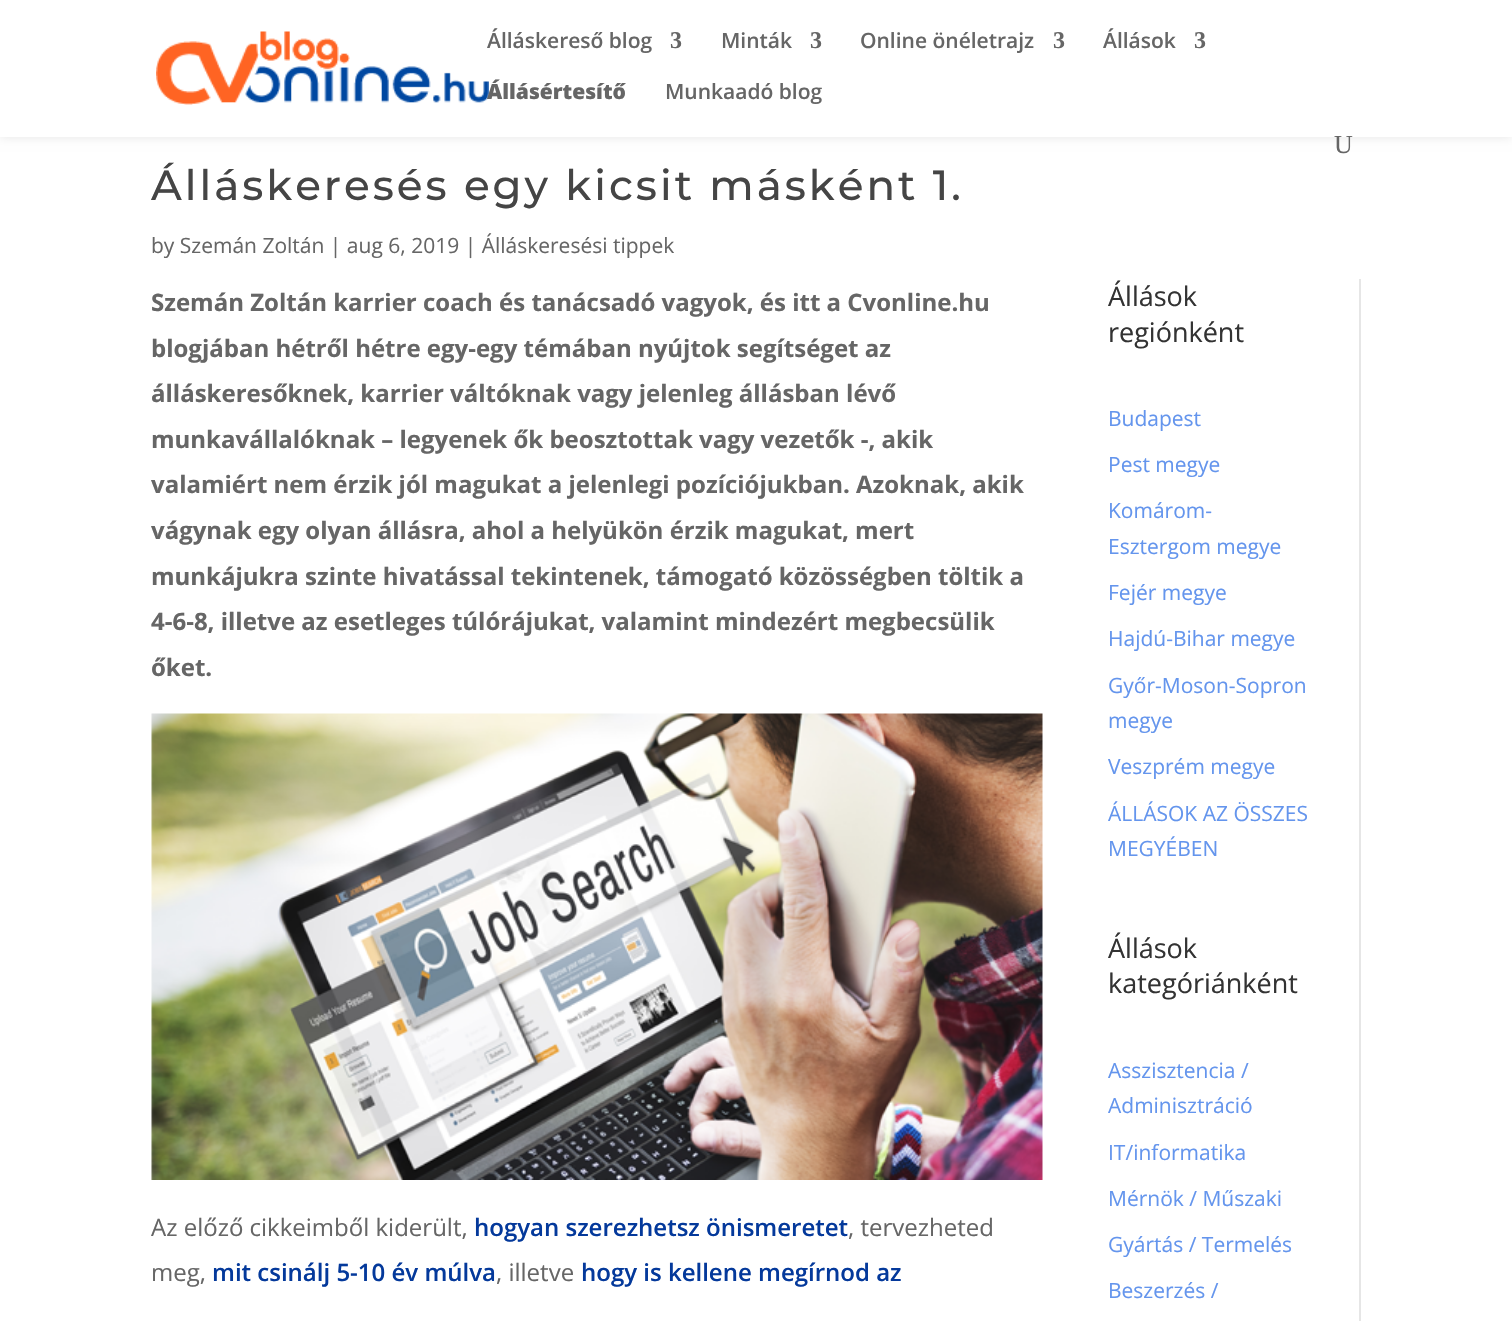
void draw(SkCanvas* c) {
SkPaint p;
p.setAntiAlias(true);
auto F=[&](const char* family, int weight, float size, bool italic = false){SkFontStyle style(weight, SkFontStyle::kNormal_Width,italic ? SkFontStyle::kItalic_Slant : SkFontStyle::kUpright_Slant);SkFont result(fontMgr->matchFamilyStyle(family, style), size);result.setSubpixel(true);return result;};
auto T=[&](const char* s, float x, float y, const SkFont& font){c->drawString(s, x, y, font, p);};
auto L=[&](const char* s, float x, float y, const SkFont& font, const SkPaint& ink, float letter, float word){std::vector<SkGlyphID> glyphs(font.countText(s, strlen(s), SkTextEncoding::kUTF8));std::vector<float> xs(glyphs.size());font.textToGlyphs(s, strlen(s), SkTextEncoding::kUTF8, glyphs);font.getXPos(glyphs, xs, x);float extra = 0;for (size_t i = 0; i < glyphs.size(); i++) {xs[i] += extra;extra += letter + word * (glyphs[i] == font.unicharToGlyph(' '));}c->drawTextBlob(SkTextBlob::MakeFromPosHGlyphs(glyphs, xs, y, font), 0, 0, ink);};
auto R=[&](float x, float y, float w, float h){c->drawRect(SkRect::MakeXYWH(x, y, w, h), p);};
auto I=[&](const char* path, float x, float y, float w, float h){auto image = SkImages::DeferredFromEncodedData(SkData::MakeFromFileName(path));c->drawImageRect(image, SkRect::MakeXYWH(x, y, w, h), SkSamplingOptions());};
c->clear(0xffffffff);
p.setColor(0x1a000000);
p.setMaskFilter(SkMaskFilter::MakeBlur(kNormal_SkBlurStyle, 5));
c->drawRect(SkRect::MakeXYWH(0,0,1512,137),p);
p.setMaskFilter(nullptr);
p.setColor(0xffffffff);
R(0,0,1512,137);
I("1.png",156,31,333,74);
auto f1 = F("Open Sans",600,21);
p.setColor(0xff666666);
T("Álláskereső blog",487,48,f1);
auto f2 = F("Liberation Serif",700,24);
T("3",670,48,f2);
T("Minták",721,48,f1);
T("3",810,48,f2);
T("Online önéletrajz",860,48,f1);
T("3",1053,48,f2);
T("Állások",1103,48,f1);
T("3",1194,48,f2);
auto f3 = F("Open Sans",800,21);
T("Állásértesítő",487,99,f3);
T("Munkaadó blog",665,99,f1);
auto f4 = F("Liberation Serif",400,26);
T("U",1334,153,f4);
auto f5 = F("Montserrat",500,42);
p.setColor(0xff454545);
L("Álláskeresés egy kicsit másként 1.",151,200,f5,p,3,0);
auto f6 = F("Open Sans",400,21);
p.setColor(0xff666666);
T("by Szemán Zoltán | aug 6, 2019 | Álláskeresési tippek",151,253,f6);
auto f7 = F("Open Sans",700,24);
T("Szemán Zoltán karrier coach és tanácsadó vagyok, és itt a Cvonline.hu",151,311,f7);
T("blogjában hétről hétre egy-egy témában nyújtok segítséget az",151,357,f7);
T("álláskeresőknek, karrier váltóknak vagy jelenleg állásban lévő",151,402,f7);
T("munkavállalóknak – legyenek ők beosztottak vagy vezetők -, akik",151,448,f7);
T("valamiért nem érzik jól magukat a jelenlegi pozíciójukban. Azoknak, akik",151,493,f7);
T("vágynak egy olyan állásra, ahol a helyükön érzik magukat, mert",151,539,f7);
T("munkájukra szinte hivatással tekintenek, támogató közösségben töltik a",151,585,f7);
T("4-6-8, illetve az esetleges túlórájukat, valamint mindezért megbecsülik",151,630,f7);
T("őket.",151,676,f7);
I("2.png",151,713,892,467);
auto f8 = F("Open Sans",400,24);
T("Az előző cikkeimből kiderült,",151,1236,f8);
auto f9 = F("Open Sans",600,24);
p.setColor(0xff04399b);
T("hogyan szerezhetsz önismeretet",474,1236,f9);
p.setColor(0xff666666);
T(", tervezheted",848,1236,f8);
T("meg,",151,1281,f8);
p.setColor(0xff04399b);
T("mit csinálj 5-10 év múlva",212,1281,f9);
p.setColor(0xff666666);
T(", illetve",496,1281,f8);
p.setColor(0xff04399b);
T("hogy is kellene megírnod az",581,1281,f9);
p.setColor(0xffe6e6e6);
R(1359,279,2,1042);
auto f10 = F("Open Sans",400,27);
p.setColor(0xff333333);
T("Állások",1108,306,f10);
T("regiónként",1108,342,f10);
p.setColor(0xff6495ed);
T("Budapest",1108,426,f6);
T("Pest megye",1108,472,f6);
T("Komárom-",1108,518,f6);
T("Esztergom megye",1108,554,f6);
T("Fejér megye",1108,600,f6);
T("Hajdú-Bihar megye",1108,646,f6);
T("Győr-Moson-Sopron",1108,693,f6);
T("megye",1108,728,f6);
T("Veszprém megye",1108,774,f6);
T("ÁLLÁSOK AZ ÖSSZES",1108,821,f6);
T("MEGYÉBEN",1108,856,f6);
p.setColor(0xff333333);
T("Állások",1108,958,f10);
T("kategóriánként",1108,993,f10);
p.setColor(0xff6495ed);
T("Asszisztencia /",1108,1078,f6);
T("Adminisztráció",1108,1113,f6);
T("IT/informatika",1108,1160,f6);
T("Mérnök / Műszaki",1108,1206,f6);
T("Gyártás / Termelés",1108,1252,f6);
T("Beszerzés /",1108,1298,f6);
}
